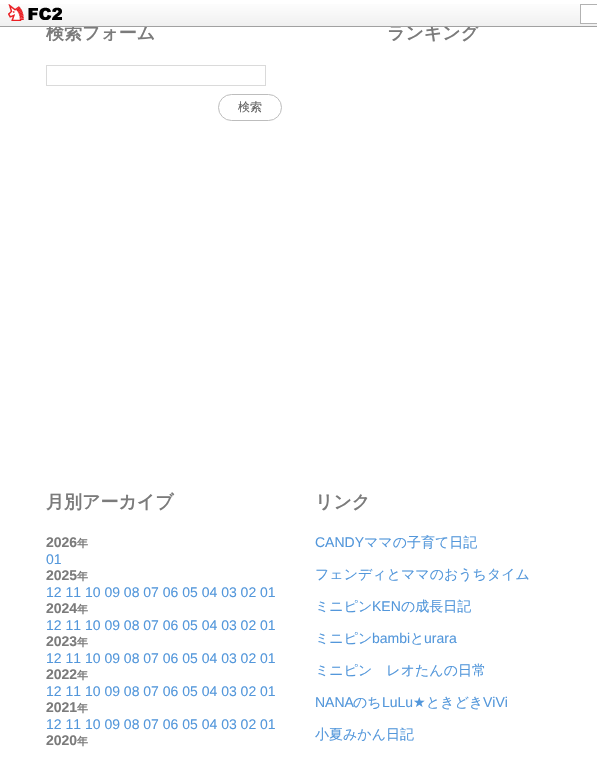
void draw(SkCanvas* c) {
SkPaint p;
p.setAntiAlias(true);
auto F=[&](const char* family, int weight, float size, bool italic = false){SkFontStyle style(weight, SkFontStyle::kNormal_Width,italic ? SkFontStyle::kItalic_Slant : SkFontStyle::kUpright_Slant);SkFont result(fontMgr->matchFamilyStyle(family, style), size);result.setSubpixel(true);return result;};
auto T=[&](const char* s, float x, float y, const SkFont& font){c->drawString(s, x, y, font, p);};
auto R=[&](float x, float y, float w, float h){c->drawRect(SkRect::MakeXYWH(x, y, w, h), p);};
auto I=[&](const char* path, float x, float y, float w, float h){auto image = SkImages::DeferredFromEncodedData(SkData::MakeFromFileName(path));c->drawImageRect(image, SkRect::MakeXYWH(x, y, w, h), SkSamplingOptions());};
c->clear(0xffffffff);
auto f1 = F("WenQuanYi Zen Hei",700,18);
p.setColor(0xff7b7b7b);
T("検索フォーム",46,39,f1);
T("ランキング",387,39,f1);
{
const SkColor colors[] = {0xffffffff,0xfff0f0f0};
const float stops[] = {0,1};
const SkPoint ends[] = {{0,0}, {0,26}};
p.setShader(SkGradientShader::MakeLinear(ends, colors, stops, 2, SkTileMode::kClamp));
p.setAlpha(255);
}
R(0,4,597,22);
p.setShader(nullptr);
p.setColor(0xffa1a1a1);
R(0,26,597,1);
I("1.png",8,4,54,17);
p.setColor(0xffffffff);
c->drawRect(SkRect::MakeXYWH(580.5,4.5,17,19),p);
p.setStroke(true);
p.setStrokeWidth(1);
p.setColor(0xffb2b2b2);
c->drawRect(SkRect::MakeXYWH(580.5,4.5,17,19),p);
p.setColor(0xffdadada);
c->drawRect(SkRect::MakeXYWH(46.5,65.5,219,20),p);
p.setColor(0xffbdbdbd);
c->drawRoundRect(SkRect::MakeXYWH(218.5,94.5,63,26),13,13,p);
auto f2 = F("WenQuanYi Zen Hei",500,12);
p.setStroke(false);
p.setColor(0xff606060);
T("検索",238,111,f2);
p.setColor(0xff7b7b7b);
T("月別アーカイブ",46,508,f1);
auto f3 = F("Liberation Sans",700,14);
T("2026",46,547,f3);
auto f4 = F("WenQuanYi Zen Hei",700,11);
T("年",77,547,f4);
auto f5 = F("Liberation Sans",400,14);
p.setColor(0xff5397db);
T("01",46,564,f5);
p.setColor(0xff7b7b7b);
T("2025",46,580,f3);
T("年",77,580,f4);
p.setColor(0xff5397db);
T("12 11 10 09 08 07 06 05 04 03 02 01",46,597,f5);
p.setColor(0xff7b7b7b);
T("2024",46,613,f3);
T("年",77,613,f4);
p.setColor(0xff5397db);
T("12 11 10 09 08 07 06 05 04 03 02 01",46,630,f5);
p.setColor(0xff7b7b7b);
T("2023",46,646,f3);
T("年",77,646,f4);
p.setColor(0xff5397db);
T("12 11 10 09 08 07 06 05 04 03 02 01",46,663,f5);
p.setColor(0xff7b7b7b);
T("2022",46,679,f3);
T("年",77,679,f4);
p.setColor(0xff5397db);
T("12 11 10 09 08 07 06 05 04 03 02 01",46,696,f5);
p.setColor(0xff7b7b7b);
T("2021",46,712,f3);
T("年",77,712,f4);
p.setColor(0xff5397db);
T("12 11 10 09 08 07 06 05 04 03 02 01",46,729,f5);
p.setColor(0xff7b7b7b);
T("2020",46,745,f3);
T("年",77,745,f4);
T("リンク",315,508,f1);
p.setColor(0xff5397db);
T("CANDY",315,547,f5);
auto f6 = F("WenQuanYi Zen Hei",500,14);
T("ママの子育て日記",364,547,f6);
T("フェンディとママのおうちタイム",315,579,f6);
T("ミニピン",315,611,f6);
T("KEN",372,611,f5);
T("の成長日記",401,611,f6);
T("ミニピン",315,643,f6);
T("bambi",372,643,f5);
T("と",410,643,f6);
T("urara",424,643,f5);
T("ミニピン　レオたんの日常",315,675,f6);
T("NANA",315,707,f5);
T("のち",353,707,f6);
T("LuLu",382,707,f5);
auto f7 = F("DejaVu Sans",400,14);
T("★",413,707,f7);
T("ときどき",426,707,f6);
T("ViVi",483,707,f5);
T("小夏みかん日記",315,739,f6);
}
